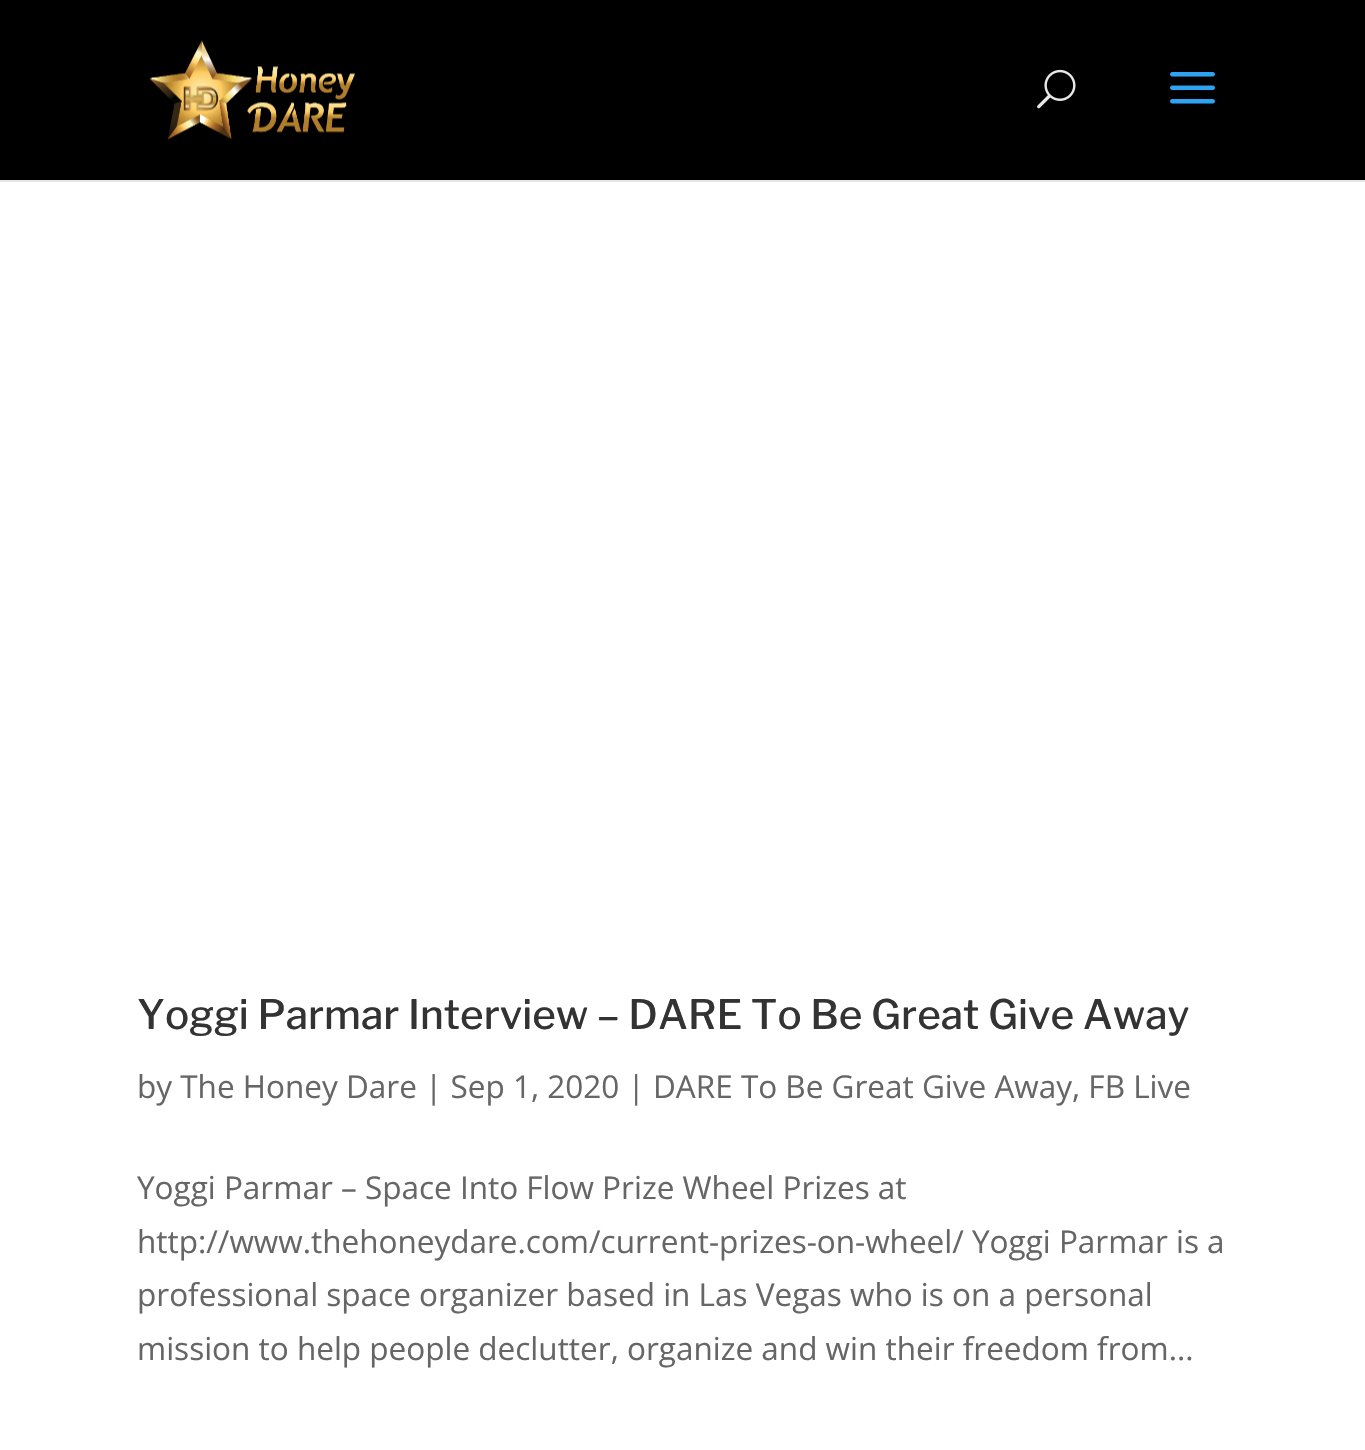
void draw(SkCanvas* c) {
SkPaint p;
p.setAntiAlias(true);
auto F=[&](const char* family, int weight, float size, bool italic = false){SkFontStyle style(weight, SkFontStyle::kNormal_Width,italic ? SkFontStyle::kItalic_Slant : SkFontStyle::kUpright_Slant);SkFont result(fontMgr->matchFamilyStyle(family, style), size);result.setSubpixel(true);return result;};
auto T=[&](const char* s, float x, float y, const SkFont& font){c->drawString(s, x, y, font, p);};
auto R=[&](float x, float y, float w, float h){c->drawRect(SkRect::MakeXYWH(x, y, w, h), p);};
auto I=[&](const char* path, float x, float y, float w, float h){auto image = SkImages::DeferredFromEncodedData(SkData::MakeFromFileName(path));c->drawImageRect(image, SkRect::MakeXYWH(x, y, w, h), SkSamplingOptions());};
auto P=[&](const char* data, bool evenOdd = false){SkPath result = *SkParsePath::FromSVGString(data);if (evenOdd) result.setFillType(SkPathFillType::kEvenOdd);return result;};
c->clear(0xffffffff);
p.setColor(0xffe6e6e6);
c->drawPath(P("M0 180v2h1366v-180v178z"),p);
p.setColor(0xff000000);
R(0,0,1365,180);
I("1.png",149,40,206,100);
I("2.png",1037,69,39,40);
I("3.png",1170,72,45,32);
auto f1 = F("Libre Franklin",500,40.5);
p.setColor(0xff333333);
T("Yoggi Parmar Interview – DARE To Be Great Give Away",137,1029,f1);
auto f2 = F("Open Sans",400,31.5);
p.setColor(0xff666666);
T("by The Honey Dare | Sep 1, 2020 | DARE To Be Great Give Away, FB Live",137,1098,f2);
T("Yoggi Parmar – Space Into Flow Prize Wheel Prizes at",137,1199,f2);
T("http://www.thehoneydare.com/current-prizes-on-wheel/ Yoggi Parmar is a",137,1253,f2);
T("professional space organizer based in Las Vegas who is on a personal",137,1306,f2);
T("mission to help people declutter, organize and win their freedom from...",137,1360,f2);
}
